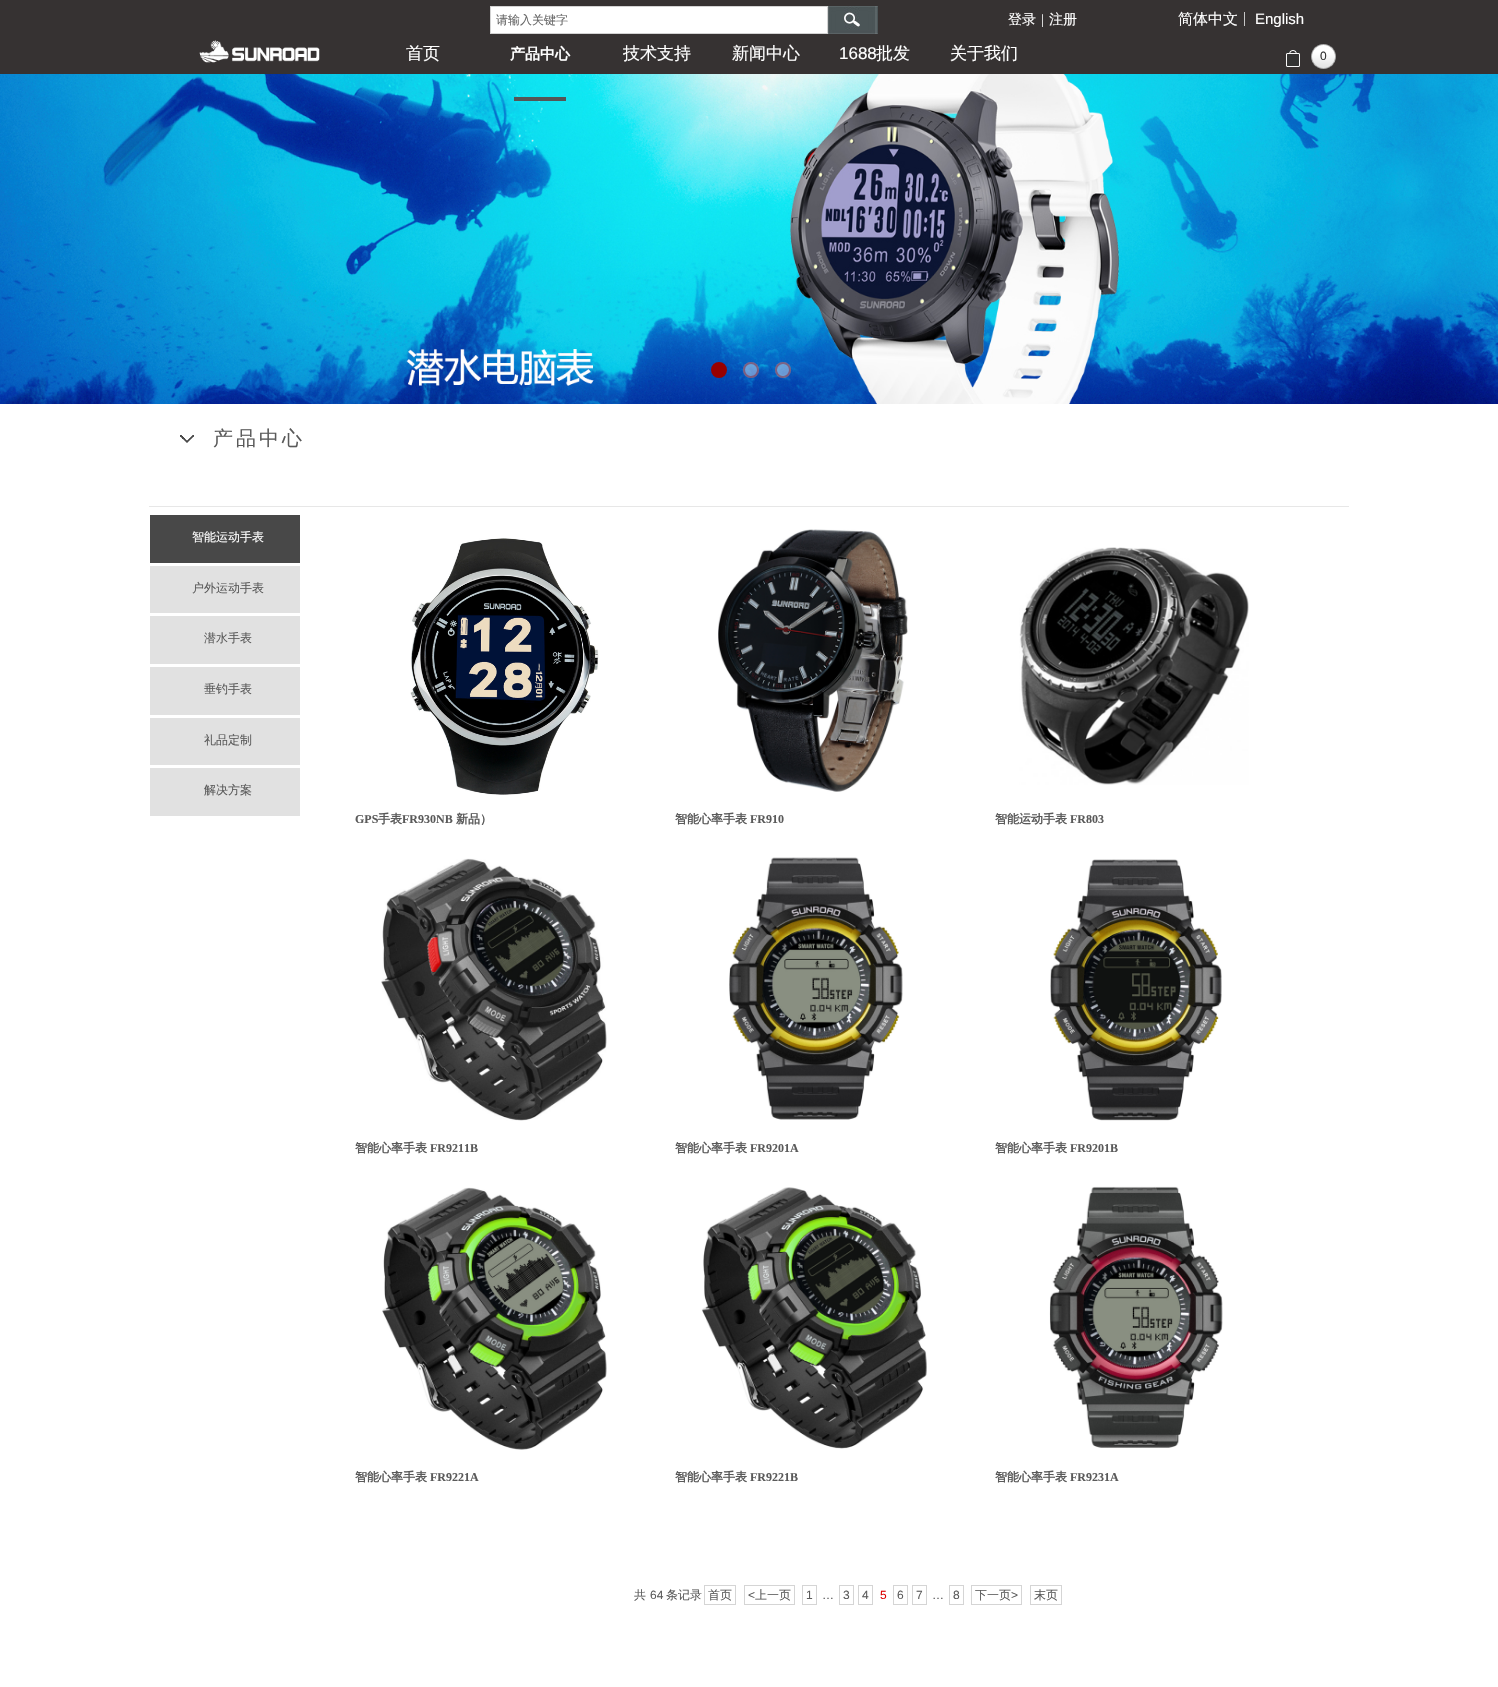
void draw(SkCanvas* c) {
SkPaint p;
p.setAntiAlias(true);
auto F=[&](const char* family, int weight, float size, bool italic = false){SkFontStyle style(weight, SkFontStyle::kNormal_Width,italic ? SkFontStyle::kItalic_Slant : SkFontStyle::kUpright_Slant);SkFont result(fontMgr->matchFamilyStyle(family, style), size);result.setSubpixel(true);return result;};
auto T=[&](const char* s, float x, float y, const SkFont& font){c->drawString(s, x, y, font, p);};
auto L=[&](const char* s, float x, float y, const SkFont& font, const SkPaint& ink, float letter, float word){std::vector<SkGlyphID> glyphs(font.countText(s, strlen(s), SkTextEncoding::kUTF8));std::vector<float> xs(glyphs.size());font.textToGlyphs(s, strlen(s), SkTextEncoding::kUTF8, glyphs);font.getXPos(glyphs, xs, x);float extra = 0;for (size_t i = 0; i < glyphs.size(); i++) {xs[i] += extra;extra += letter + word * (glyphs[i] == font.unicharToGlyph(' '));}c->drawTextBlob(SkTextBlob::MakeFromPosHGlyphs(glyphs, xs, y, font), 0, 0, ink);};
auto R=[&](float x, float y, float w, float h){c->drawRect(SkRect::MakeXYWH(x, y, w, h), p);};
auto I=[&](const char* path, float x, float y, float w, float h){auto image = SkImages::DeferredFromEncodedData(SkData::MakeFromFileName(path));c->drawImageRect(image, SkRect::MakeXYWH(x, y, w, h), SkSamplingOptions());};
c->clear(0xffffffff);
p.setColor(0xff363232);
R(0,0,1498,74);
p.setColor(0xffffffff);
c->drawRect(SkRect::MakeXYWH(490.5,6.5,337,27),p);
p.setStroke(true);
p.setStrokeWidth(1);
p.setColor(0xffd3d3d3);
c->drawRect(SkRect::MakeXYWH(490.5,6.5,337,27),p);
auto f1 = F("WenQuanYi Zen Hei",500,12);
p.setStroke(false);
p.setColor(0xff666666);
T("请输入关键字",496,24,f1);
I("1.png",828,6,50,28);
auto f2 = F("WenQuanYi Zen Hei",500,14);
p.setColor(0xffffffff);
T("登录",1008,24,f2);
auto f3 = F("Liberation Serif",400,14);
T("|",1041,24,f3);
T("注册",1049,24,f2);
p.setColor(0xffc6c6c6);
R(1244,12,1,14);
auto f4 = F("WenQuanYi Zen Hei",500,15);
p.setColor(0xffffffff);
T("简体中文",1178,24,f4);
auto f5 = F("Liberation Sans",400,15);
T("English",1255,24,f5);
I("2.png",199,40,121,23);
auto f6 = F("WenQuanYi Zen Hei",500,17);
T("首页",406,59,f6);
I("5.png",0,74,1498,330);
p.setColor(0xff555555);
R(514,97,52,4);
auto f7 = F("WenQuanYi Zen Hei",700,15);
p.setColor(0xffffffff);
T("产品中心",510,59,f7);
T("技术支持",623,59,f6);
T("新闻中心",732,59,f6);
auto f8 = F("Liberation Sans",400,17);
T("1688",839,59,f8);
T("批发",876,59,f6);
T("关于我们",950,59,f6);
I("3.png",1286,50,14,17);
I("4.png",1311,44,25,25);
auto f9 = F("Liberation Sans",400,12);
p.setColor(0xff333333);
T("0",1320,60,f9);
p.setColor(0xff980000);
c->drawCircle(719,370,7,p);
p.setStroke(true);
p.setStrokeWidth(2);
c->drawCircle(719,370,7,p);
p.setStroke(false);
p.setColor(0x66ffffff);
c->drawCircle(751,370,8,p);
p.setStroke(true);
p.setColor(0x66980000);
c->drawCircle(751,370,7,p);
p.setStroke(false);
p.setColor(0x66ffffff);
c->drawCircle(783,370,8,p);
p.setStroke(true);
p.setColor(0x66980000);
c->drawCircle(783,370,7,p);
I("6.png",180,435,14,8);
auto f10 = F("WenQuanYi Zen Hei",500,20);
p.setStroke(false);
p.setColor(0xff5a5a5a);
L("产品中心",213,445,f10,p,3,0);
p.setColor(0xffe7e7e7);
R(149,506,1200,1);
p.setColor(0xff484848);
R(150,515,150,48);
p.setColor(0xffffffff);
T("智能运动手表",192,541,f1);
p.setColor(0xffe1e1e1);
R(150,566,150,47);
p.setColor(0xff5a5a5a);
T("户外运动手表",192,592,f1);
p.setColor(0xffe1e1e1);
R(150,616,150,48);
p.setColor(0xff5a5a5a);
T("潜水手表",204,642,f1);
p.setColor(0xffe1e1e1);
R(150,667,150,48);
p.setColor(0xff5a5a5a);
T("垂钓手表",204,693,f1);
p.setColor(0xffe1e1e1);
R(150,718,150,47);
p.setColor(0xff5a5a5a);
T("礼品定制",204,744,f1);
p.setColor(0xffe1e1e1);
R(150,768,150,48);
p.setColor(0xff5a5a5a);
T("解决方案",204,794,f1);
I("7.png",410,538,189,257);
auto f11 = F("Liberation Serif",700,12);
T("GPS",355,823,f11);
auto f12 = F("WenQuanYi Zen Hei",700,12);
T("手表",378,823,f12);
T("FR930NB",402,823,f11);
T("新品）",456,823,f12);
I("8.png",718,529,190,263);
T("智能心率手表",675,823,f12);
T("FR910",750,823,f11);
I("9.png",1019,547,230,238);
T("智能运动手表",995,823,f12);
T("FR803",1070,823,f11);
I("10.png",381,858,226,263);
T("智能心率手表",355,1152,f12);
T("FR9211B",430,1152,f11);
I("11.png",729,857,174,263);
T("智能心率手表",675,1152,f12);
T("FR9201A",750,1152,f11);
I("12.png",1050,859,172,262);
T("智能心率手表",995,1152,f12);
T("FR9201B",1070,1152,f11);
I("13.png",382,1187,225,263);
T("智能心率手表",355,1481,f12);
T("FR9221A",430,1481,f11);
I("14.png",701,1187,226,262);
T("智能心率手表",675,1481,f12);
T("FR9221B",750,1481,f11);
I("15.png",1049,1186,174,262);
T("智能心率手表",995,1481,f12);
T("FR9231A",1070,1481,f11);
T("共",634,1599,f1);
T("64",650,1599,f9);
T("条记录",666,1599,f1);
p.setStroke(true);
p.setStrokeWidth(1);
p.setColor(0xffd5d5d5);
c->drawRect(SkRect::MakeXYWH(704.5,1585.5,31,19),p);
p.setStroke(false);
p.setColor(0xff5a5a5a);
T("首页",708,1599,f1);
p.setStroke(true);
p.setColor(0xffd5d5d5);
c->drawRect(SkRect::MakeXYWH(744.5,1585.5,50,19),p);
p.setStroke(false);
p.setColor(0xff5a5a5a);
T("<",748,1599,f9);
T("上一页",755,1599,f1);
p.setStroke(true);
p.setColor(0xffd5d5d5);
c->drawRect(SkRect::MakeXYWH(802.5,1585.5,14,19),p);
p.setStroke(false);
p.setColor(0xff5a5a5a);
T("1",806,1599,f9);
T("…",822,1599,f9);
p.setStroke(true);
p.setColor(0xffd5d5d5);
c->drawRect(SkRect::MakeXYWH(839.5,1585.5,14,19),p);
p.setStroke(false);
p.setColor(0xff5a5a5a);
T("3",843,1599,f9);
p.setStroke(true);
p.setColor(0xffd5d5d5);
c->drawRect(SkRect::MakeXYWH(858.5,1585.5,14,19),p);
p.setStroke(false);
p.setColor(0xff5a5a5a);
T("4",862,1599,f9);
p.setColor(0xffdd0000);
T("5",880,1599,f9);
p.setStroke(true);
p.setColor(0xffd5d5d5);
c->drawRect(SkRect::MakeXYWH(893.5,1585.5,14,19),p);
p.setStroke(false);
p.setColor(0xff5a5a5a);
T("6",897,1599,f9);
p.setStroke(true);
p.setColor(0xffd5d5d5);
c->drawRect(SkRect::MakeXYWH(912.5,1585.5,14,19),p);
p.setStroke(false);
p.setColor(0xff5a5a5a);
T("7",916,1599,f9);
T("…",932,1599,f9);
p.setStroke(true);
p.setColor(0xffd5d5d5);
c->drawRect(SkRect::MakeXYWH(949.5,1585.5,14,19),p);
p.setStroke(false);
p.setColor(0xff5a5a5a);
T("8",953,1599,f9);
p.setStroke(true);
p.setColor(0xffd5d5d5);
c->drawRect(SkRect::MakeXYWH(971.5,1585.5,50,19),p);
p.setStroke(false);
p.setColor(0xff5a5a5a);
T("下一页",975,1599,f1);
T(">",1011,1599,f9);
p.setStroke(true);
p.setColor(0xffd5d5d5);
c->drawRect(SkRect::MakeXYWH(1030.5,1585.5,31,19),p);
p.setStroke(false);
p.setColor(0xff5a5a5a);
T("末页",1034,1599,f1);
}
